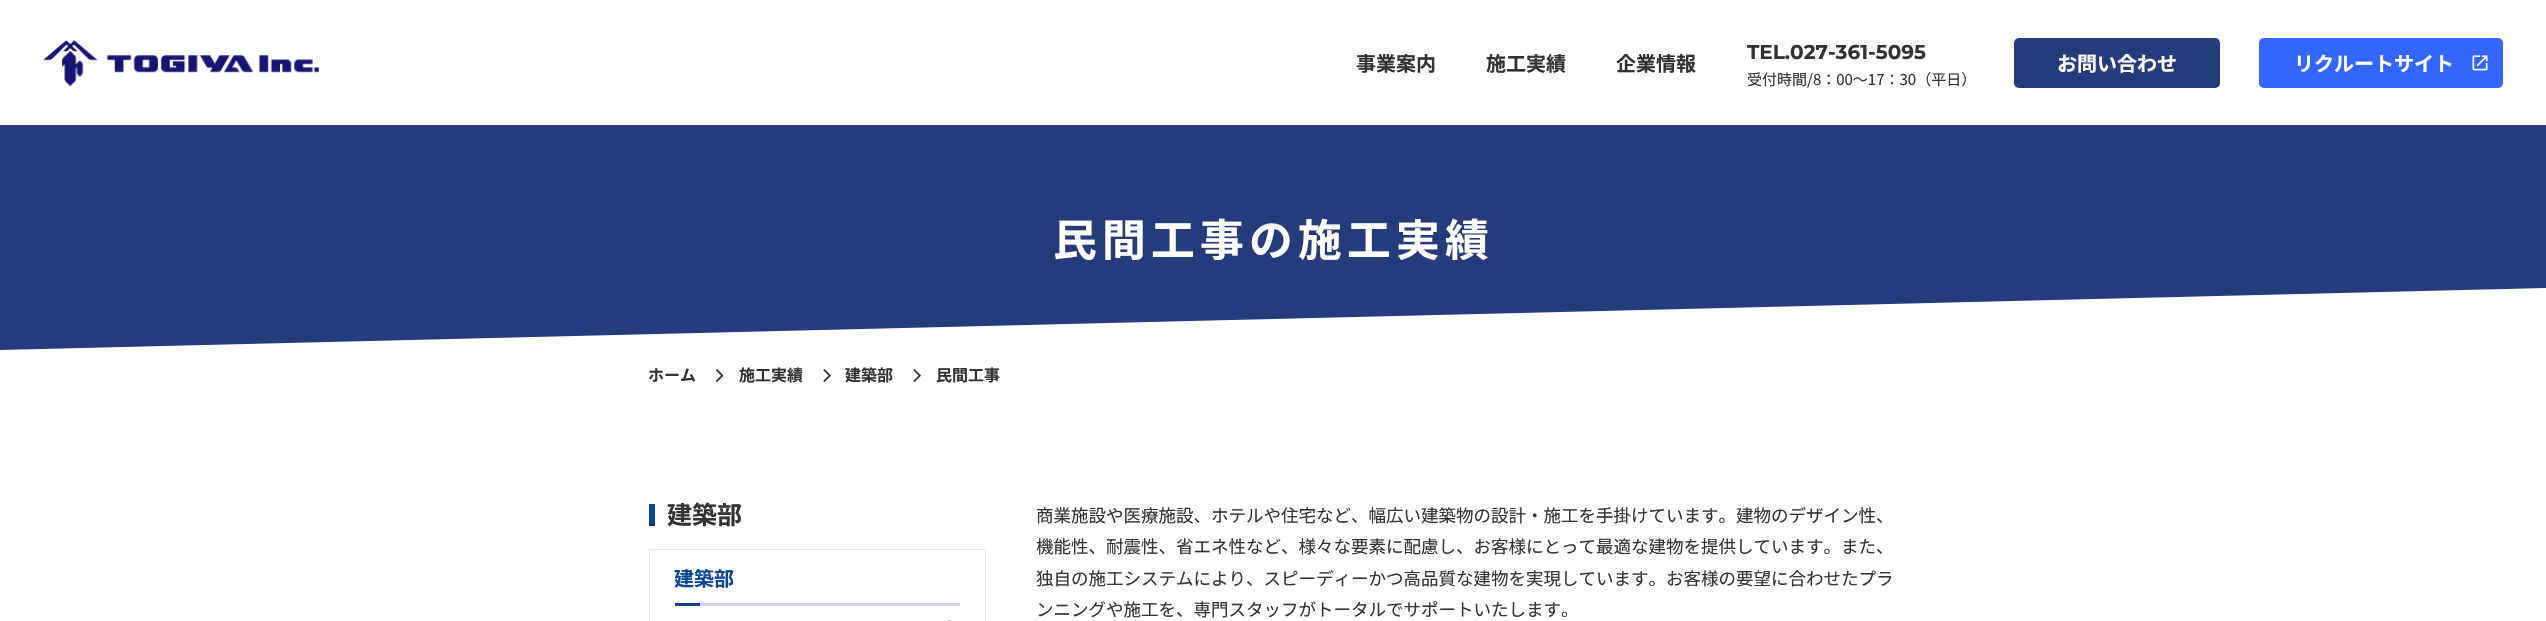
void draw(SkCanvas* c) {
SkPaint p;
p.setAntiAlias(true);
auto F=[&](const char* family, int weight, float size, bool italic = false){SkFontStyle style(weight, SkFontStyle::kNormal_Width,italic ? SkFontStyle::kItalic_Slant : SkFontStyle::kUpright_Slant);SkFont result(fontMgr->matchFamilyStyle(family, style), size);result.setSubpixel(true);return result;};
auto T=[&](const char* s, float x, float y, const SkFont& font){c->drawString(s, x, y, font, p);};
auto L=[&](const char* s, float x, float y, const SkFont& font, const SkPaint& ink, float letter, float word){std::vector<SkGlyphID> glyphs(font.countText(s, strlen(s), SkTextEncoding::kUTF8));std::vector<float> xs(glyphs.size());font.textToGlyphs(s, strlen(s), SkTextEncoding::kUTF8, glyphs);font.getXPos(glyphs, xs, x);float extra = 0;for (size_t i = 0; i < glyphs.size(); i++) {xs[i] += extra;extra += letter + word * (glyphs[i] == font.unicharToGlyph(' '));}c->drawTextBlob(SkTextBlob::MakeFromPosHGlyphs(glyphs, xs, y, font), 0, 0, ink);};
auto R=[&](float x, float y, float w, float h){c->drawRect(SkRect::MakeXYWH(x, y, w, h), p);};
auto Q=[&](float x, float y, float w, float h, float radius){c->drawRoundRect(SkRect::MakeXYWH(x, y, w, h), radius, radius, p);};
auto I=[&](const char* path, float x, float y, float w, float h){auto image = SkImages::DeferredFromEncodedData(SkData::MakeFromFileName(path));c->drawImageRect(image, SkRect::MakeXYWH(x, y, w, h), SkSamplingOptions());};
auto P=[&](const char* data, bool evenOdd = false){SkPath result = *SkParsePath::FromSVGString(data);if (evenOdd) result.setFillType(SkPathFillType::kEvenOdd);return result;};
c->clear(0xffffffff);
I("1.png",43,40,276,47);
auto f1 = F("Noto Sans JP",700,20);
p.setColor(0xff333333);
T("事業案内",1356,71,f1);
T("施工実績",1486,71,f1);
T("企業情報",1616,71,f1);
auto f2 = F("Montserrat",700,20);
T("TEL.027-361-5095",1747,59,f2);
auto f3 = F("Noto Sans JP",400,15);
T("受付時間/8：00〜17：30（平日）",1747,85,f3);
p.setColor(0xff243b7c);
Q(2014,38,206,50,5);
p.setColor(0xffffffff);
T("お問い合わせ",2057,71,f1);
p.setColor(0xff3366ff);
Q(2259,38,244,50,5);
p.setColor(0xffffffff);
T("リクルートサイト",2294,71,f1);
I("2.png",2472,55,16,16);
p.setColor(0xff243b7c);
R(0,125,2546,225);
auto f4 = F("Noto Sans JP",700,43.75);
p.setColor(0xffffffff);
L("民間工事の施工実績",1053,256,f4,p,5.25,0);
c->drawPath(P("M2546 350h-2546l2546-62z"),p);
auto f5 = F("Noto Sans JP",700,16);
p.setColor(0xff333333);
T("ホーム",648,381,f5);
I("3.png",715,369,9,13);
T("施工実績",739,381,f5);
I("4.png",823,369,8,13);
T("建築部",845,381,f5);
I("4.png",913,369,8,13);
T("民間工事",936,381,f5);
p.setColor(0xff084795);
R(649,504,6,22);
auto f6 = F("Noto Sans JP",700,25);
p.setColor(0xff333333);
T("建築部",667,524,f6);
p.setStroke(true);
p.setStrokeWidth(1);
p.setColor(0xffe6e6e6);
c->drawRect(SkRect::MakeXYWH(649.5,549.5,336,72),p);
p.setStroke(false);
p.setColor(0xff084795);
T("建築部",674,586,f1);
R(675,603,25,3);
p.setColor(0xffcfd4e2);
R(700,603,260,3);
I("5.png",948,620,3,1);
auto f7 = F("Noto Sans JP",400,17.5);
p.setColor(0xff333333);
T("商業施設や医療施設、ホテルや住宅など、幅広い建築物の設計・施工を手掛けています。建物のデザイン性、",1036,522,f7);
T("機能性、耐震性、省エネ性など、様々な要素に配慮し、お客様にとって最適な建物を提供しています。また、",1036,553,f7);
T("独自の施工システムにより、スピーディーかつ高品質な建物を実現しています。お客様の要望に合わせたプラ",1036,585,f7);
T("ンニングや施工を、専門スタッフがトータルでサポートいたします。",1036,616,f7);
}
